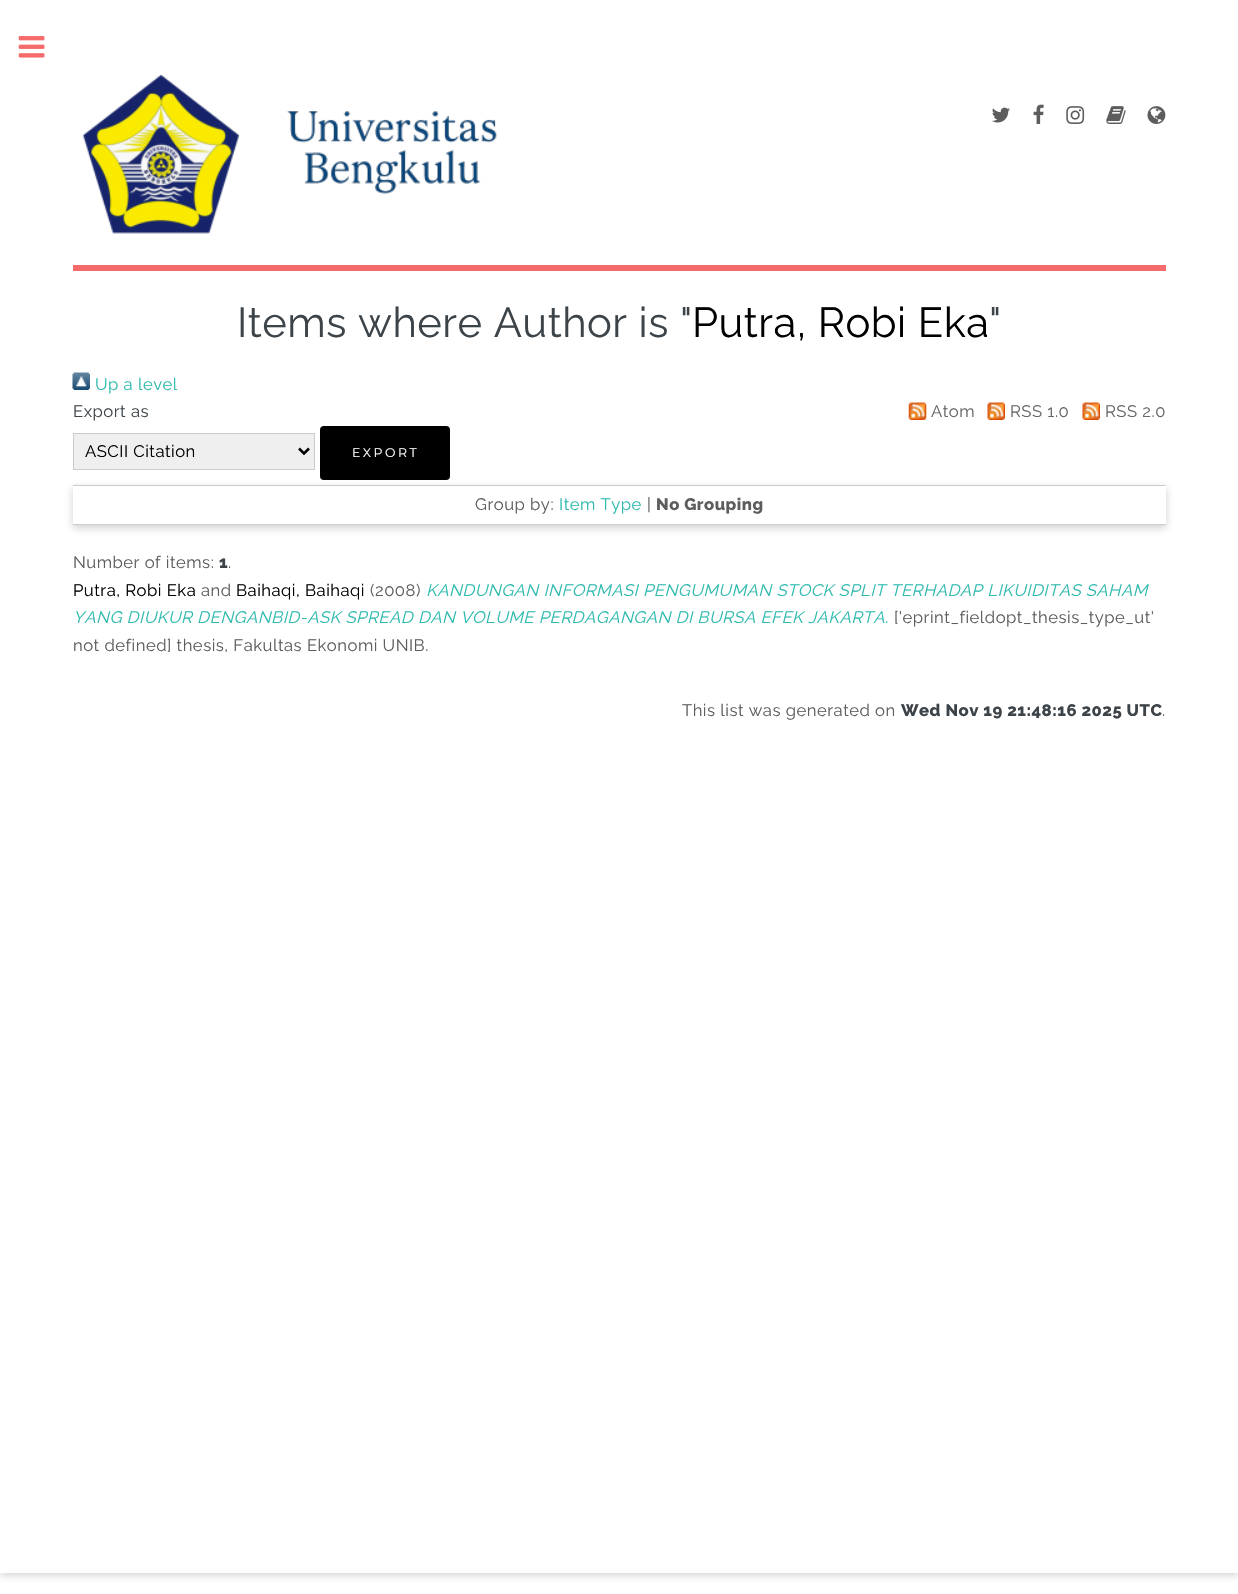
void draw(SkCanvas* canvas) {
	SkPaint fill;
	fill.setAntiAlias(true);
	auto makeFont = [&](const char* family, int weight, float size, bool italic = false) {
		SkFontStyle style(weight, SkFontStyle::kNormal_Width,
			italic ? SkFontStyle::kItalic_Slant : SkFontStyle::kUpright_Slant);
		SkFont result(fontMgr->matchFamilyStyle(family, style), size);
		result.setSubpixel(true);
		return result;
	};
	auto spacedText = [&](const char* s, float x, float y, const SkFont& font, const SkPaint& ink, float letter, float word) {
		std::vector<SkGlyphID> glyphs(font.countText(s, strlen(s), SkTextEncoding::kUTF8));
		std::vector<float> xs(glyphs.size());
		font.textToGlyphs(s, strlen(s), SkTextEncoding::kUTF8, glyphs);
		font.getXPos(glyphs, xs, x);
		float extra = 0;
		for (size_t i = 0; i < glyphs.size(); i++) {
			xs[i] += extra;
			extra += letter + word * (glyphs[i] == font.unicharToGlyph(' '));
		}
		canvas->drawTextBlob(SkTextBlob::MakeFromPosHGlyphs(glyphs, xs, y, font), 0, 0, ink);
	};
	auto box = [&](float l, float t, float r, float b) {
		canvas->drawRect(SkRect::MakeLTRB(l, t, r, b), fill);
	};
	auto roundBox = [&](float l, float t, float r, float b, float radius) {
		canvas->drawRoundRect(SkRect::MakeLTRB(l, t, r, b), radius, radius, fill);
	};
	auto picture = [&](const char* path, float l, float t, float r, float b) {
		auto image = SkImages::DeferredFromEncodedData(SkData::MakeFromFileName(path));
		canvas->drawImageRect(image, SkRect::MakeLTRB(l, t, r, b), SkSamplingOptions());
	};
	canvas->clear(0xFFFFFFFF);
	fill.setColor(0x4D646464);
	fill.setMaskFilter(SkMaskFilter::MakeBlur(kNormal_SkBlurStyle, 4));
	canvas->drawRect(SkRect::MakeLTRB(0, -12, 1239, 1575), fill);
	fill.setMaskFilter(nullptr);
	fill.setColor(0xFFFFFFFF);
	box(0, 0, 1238, 1573);
	picture("image0.png", 18, 36, 45, 58);
	fill.setColor(0xFFF56A6A);
	box(73, 265, 1166, 271);
	picture("image1.png", 82, 74, 497, 234);
	picture("image2.png", 992, 107, 1010, 123);
	picture("image3.png", 1033, 104, 1044, 124);
	picture("image4.png", 1066, 106, 1085, 124);
	picture("image5.png", 1106, 106, 1126, 124);
	picture("image6.png", 1147, 106, 1166, 124);
	picture("image7.png", 72, 372, 90, 390);
	fill.setColor(0xFFEFEFEF);
	canvas->drawRect(SkRect::MakeLTRB(73.5f, 433.5f, 314.5f, 469.5f), fill);
	fill.setStyle(SkPaint::kStroke_Style);
	fill.setStrokeWidth(1);
	fill.setColor(0xFFCCCCCC);
	canvas->drawRect(SkRect::MakeLTRB(73.5f, 433.5f, 314.5f, 469.5f), fill);
	fill.setStrokeWidth(2.5f);
	fill.setColor(0xFF000000);
	canvas->drawPath(SkPathBuilder().moveTo(299, 448.5f).lineTo(304, 453.5f).lineTo(309, 448.5f).detach(), fill);
	canvas->save();
	canvas->clipPath(SkPathBuilder(SkPathFillType::kEvenOdd).moveTo(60, 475).lineTo(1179, 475).lineTo(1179, 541).lineTo(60, 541).close().moveTo(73, 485).lineTo(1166, 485).lineTo(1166, 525).lineTo(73, 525).close().detach(), true);
	fill.setStyle(SkPaint::kFill_Style);
	fill.setColor(0x4D646464);
	fill.setMaskFilter(SkMaskFilter::MakeBlur(kNormal_SkBlurStyle, 4));
	canvas->drawRect(SkRect::MakeLTRB(73, 488, 1166, 528), fill);
	fill.setMaskFilter(nullptr);
	canvas->restore();
	fill.setColor(0xFF000000);
	roundBox(320, 426, 450, 480, 4);
	picture("image8.png", 908, 402, 927, 420);
	picture("image9.png", 987, 402, 1005, 420);
	picture("image9.png", 1082, 402, 1100, 420);
	fill.setColor(0xFFCCCCCC);
	box(73, 485, 1166, 486);
	box(73, 524, 1166, 525);
	auto font1 = makeFont("Raleway", 400, 41.75f);
	fill.setColor(0xFF3D4449);
	spacedText("Items where Author is \"", 237, 337, font1, fill, 0.5f, 0);
	fill.setColor(0xFF000000);
	spacedText("Putra, Robi Eka", 692, 337, font1, fill, 0.5f, 0);
	fill.setColor(0xFF3D4449);
	spacedText("\"", 989, 337, font1, fill, 0.5f, 0);
	auto font2 = makeFont("Raleway", 400, 16.65f);
	fill.setColor(0xFF2EBAAE);
	spacedText("Up a level", 95, 390, font2, fill, 0.5f, 0);
	fill.setColor(0xFF3D4449);
	spacedText("Export as", 73, 417, font2, fill, 0.5f, 0);
	fill.setColor(0xFF000000);
	spacedText("ASCII Citation", 85, 457, font2, fill, 0.5f, 0);
	auto font3 = makeFont("Montserrat", 400, 12.5f);
	fill.setColor(0xFFFFFFFF);
	spacedText("EXPORT", 352, 457, font3, fill, 2.5f, 0);
	fill.setColor(0xFF666666);
	spacedText("Atom", 931, 417, font2, fill, 0.5f, 0);
	spacedText("RSS 1.0", 1010, 417, font2, fill, 0.5f, 0);
	spacedText("RSS 2.0", 1105, 417, font2, fill, 0.5f, 0);
	fill.setColor(0xFF5D5D5D);
	spacedText("Group by:", 475, 510, font2, fill, 0.5f, 0);
	fill.setColor(0xFF2EBAAE);
	spacedText("Item Type", 559, 510, font2, fill, 0.5f, 0);
	fill.setColor(0xFF5D5D5D);
	spacedText("|", 647, 510, font2, fill, 0.5f, 0);
	auto font4 = makeFont("Raleway", 800, 16.65f);
	spacedText("No Grouping", 656, 510, font4, fill, 0.5f, 0);
	spacedText("Number of items:", 73, 568, font2, fill, 0.5f, 0);
	fill.setColor(0xFF3D4449);
	spacedText("1", 219, 568, font4, fill, 0.5f, 0);
	fill.setColor(0xFF5D5D5D);
	spacedText(".", 228, 568, font2, fill, 0.5f, 0);
	fill.setColor(0xFF000000);
	spacedText("Putra, Robi Eka", 73, 596, font2, fill, 0.5f, 0);
	fill.setColor(0xFF5D5D5D);
	spacedText("and", 201, 596, font2, fill, 0.5f, 0);
	fill.setColor(0xFF000000);
	spacedText("Baihaqi, Baihaqi", 236, 596, font2, fill, 0.5f, 0);
	fill.setColor(0xFF5D5D5D);
	spacedText("(2008)", 370, 596, font2, fill, 0.5f, 0);
	auto font5 = makeFont("Raleway", 400, 16.65f, true);
	fill.setColor(0xFF2EBAAE);
	spacedText("KANDUNGAN INFORMASI PENGUMUMAN STOCK SPLIT TERHADAP LIKUIDITAS SAHAM", 426, 596, font5, fill, 0.5f, 0);
	spacedText("YANG DIUKUR DENGANBID-ASK SPREAD DAN VOLUME PERDAGANGAN DI BURSA EFEK JAKARTA.", 73, 623, font5, fill, 0.5f, 0);
	fill.setColor(0xFF5D5D5D);
	spacedText("['eprint_fieldopt_thesis_type_ut'", 894, 623, font2, fill, 0.5f, 0);
	spacedText("not defined] thesis, Fakultas Ekonomi UNIB.", 73, 651, font2, fill, 0.5f, 0);
	spacedText("This list was generated on", 682, 716, font2, fill, 0.5f, 0);
	fill.setColor(0xFF3D4449);
	spacedText("Wed Nov 19 21:48:16 2025 UTC", 901, 716, font4, fill, 0.5f, 0);
	fill.setColor(0xFF5D5D5D);
	spacedText(".", 1162, 716, font2, fill, 0.5f, 0);
}
